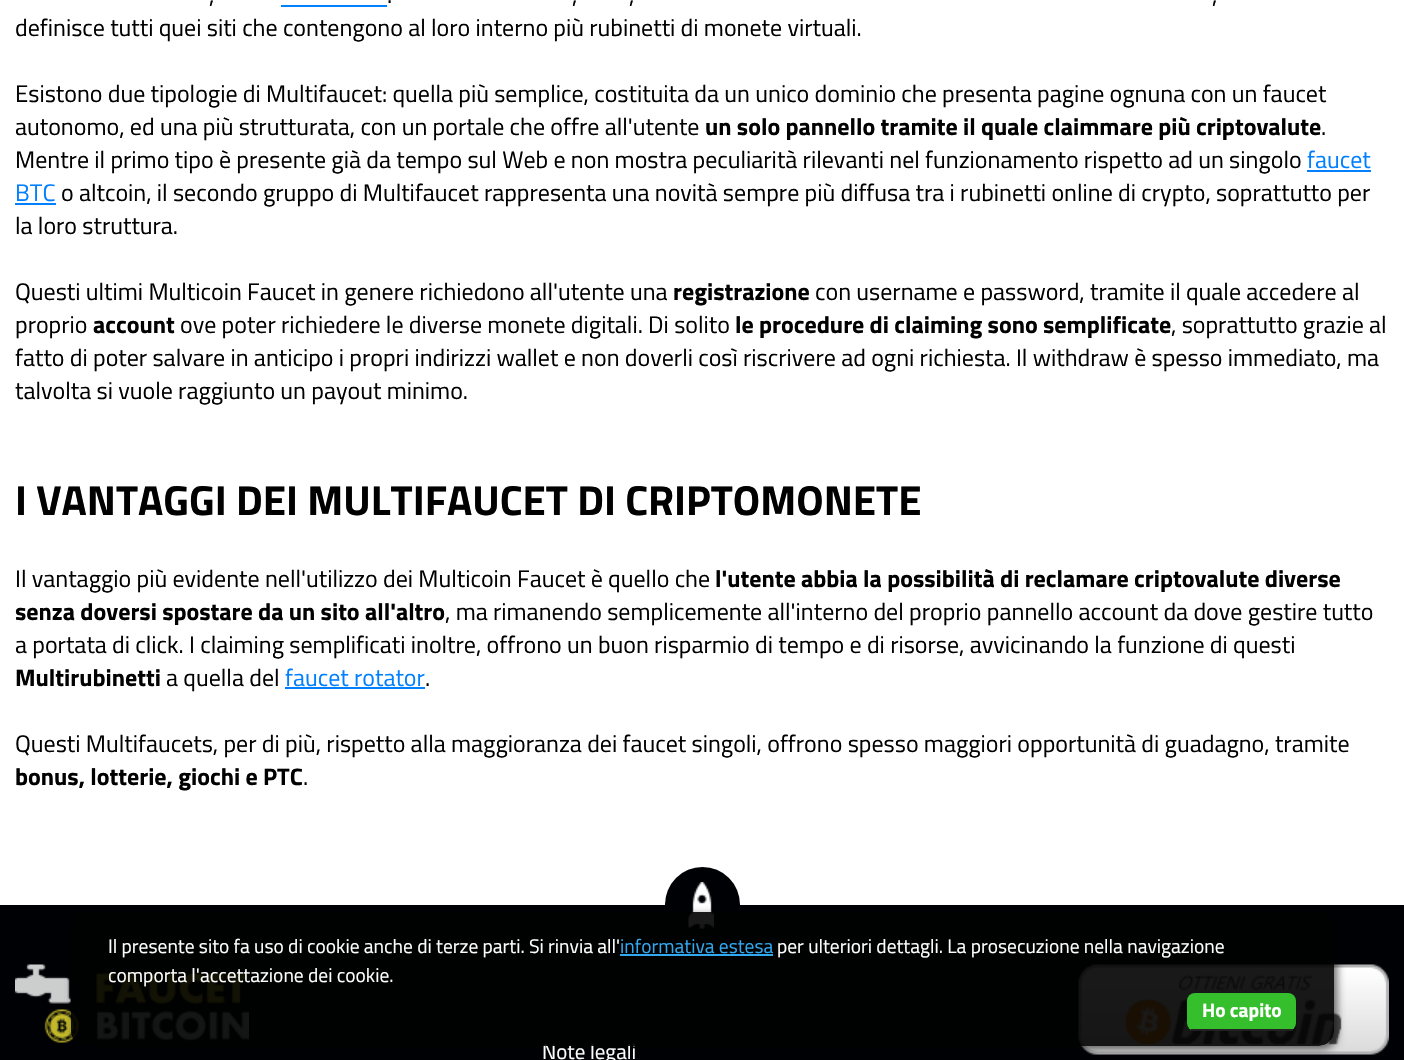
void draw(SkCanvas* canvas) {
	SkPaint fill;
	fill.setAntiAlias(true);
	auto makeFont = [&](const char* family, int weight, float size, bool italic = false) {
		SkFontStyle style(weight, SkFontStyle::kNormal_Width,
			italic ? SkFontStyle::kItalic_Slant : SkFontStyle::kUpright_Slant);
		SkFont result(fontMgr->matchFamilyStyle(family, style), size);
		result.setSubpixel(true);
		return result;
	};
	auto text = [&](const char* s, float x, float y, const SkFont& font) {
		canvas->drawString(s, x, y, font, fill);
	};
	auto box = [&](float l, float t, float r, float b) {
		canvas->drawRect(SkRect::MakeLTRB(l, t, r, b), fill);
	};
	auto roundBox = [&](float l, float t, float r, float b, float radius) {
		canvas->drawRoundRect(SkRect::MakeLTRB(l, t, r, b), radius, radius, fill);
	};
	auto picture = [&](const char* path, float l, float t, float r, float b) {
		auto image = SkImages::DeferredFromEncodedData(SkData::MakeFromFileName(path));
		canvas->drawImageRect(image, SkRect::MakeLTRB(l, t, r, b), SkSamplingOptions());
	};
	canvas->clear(0xFFFFFFFF);
	fill.setColor(0xFF007FFF);
	box(281, 5, 387, 7);
	box(1307, 170, 1371, 172);
	box(15, 203, 56, 205);
	box(285, 687, 425, 689);
	fill.setColor(0xFF000105);
	box(0, 905, 1404, 1060);
	canvas->drawCircle(702.5f, 904.5f, 37.5f, fill);
	picture("image0.png", 688, 882, 714, 929);
	picture("image1.png", 15, 964, 249, 1043);
	picture("image2.png", 1078, 964, 1389, 1055);
	canvas->save();
	canvas->clipPath(SkPathBuilder(SkPathFillType::kEvenOdd).moveTo(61, 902).lineTo(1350, 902).lineTo(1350, 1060).lineTo(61, 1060).close().moveTo(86, 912).lineTo(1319, 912).cubicTo(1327.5f, 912, 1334, 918.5f, 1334, 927).lineTo(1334, 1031).cubicTo(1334, 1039.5f, 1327.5f, 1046, 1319, 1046).lineTo(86, 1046).cubicTo(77.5f, 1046, 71, 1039.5f, 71, 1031).lineTo(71, 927).cubicTo(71, 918.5f, 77.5f, 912, 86, 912).close().detach(), true);
	fill.setColor(0x99000000);
	fill.setMaskFilter(SkMaskFilter::MakeBlur(kNormal_SkBlurStyle, 4));
	canvas->drawRoundRect(SkRect::MakeLTRB(74, 915, 1337, 1049), 15, 15, fill);
	fill.setMaskFilter(nullptr);
	canvas->restore();
	auto font1 = makeFont("Titillium Web", 400, 24);
	fill.setColor(0xFF000000);
	text(",", 209, 3, font1);
	text(".", 387, 3, font1);
	text(",", 572, 3, font1);
	text(",", 629, 3, font1);
	text(",", 1212, 3, font1);
	text("definisce tutti quei siti che contengono al loro interno più rubinetti di monete virtuali.", 15, 36, font1);
	text("Esistono due tipologie di Multifaucet: quella più semplice, costituita da un unico dominio che presenta pagine ognuna con un faucet", 15, 102, font1);
	text("autonomo, ed una più strutturata, con un portale che offre all'utente", 15, 135, font1);
	auto font2 = makeFont("Titillium Web", 700, 24);
	text("un solo pannello tramite il quale claimmare più criptovalute", 705, 135, font2);
	text(".", 1321, 135, font1);
	text("Mentre il primo tipo è presente già da tempo sul Web e non mostra peculiarità rilevanti nel funzionamento rispetto ad un singolo", 15, 168, font1);
	fill.setColor(0xFF007FFF);
	text("faucet", 1307, 168, font1);
	text("BTC", 15, 201, font1);
	fill.setColor(0xFF000000);
	text("o altcoin, il secondo gruppo di Multifaucet rappresenta una novità sempre più diffusa tra i rubinetti online di crypto, soprattutto per", 61, 201, font1);
	text("la loro struttura.", 15, 234, font1);
	text("Questi ultimi Multicoin Faucet in genere richiedono all'utente una", 15, 300, font1);
	text("registrazione", 673, 300, font2);
	text("con username e password, tramite il quale accedere al", 815, 300, font1);
	text("proprio", 15, 333, font1);
	text("account", 93, 333, font2);
	text("ove poter richiedere le diverse monete digitali. Di solito", 180, 333, font1);
	text("le procedure di claiming sono semplificate", 735, 333, font2);
	text(", soprattutto grazie al", 1171, 333, font1);
	text("fatto di poter salvare in anticipo i propri indirizzi wallet e non doverli così riscrivere ad ogni richiesta. Il withdraw è spesso immediato, ma", 15, 366, font1);
	text("talvolta si vuole raggiunto un payout minimo.", 15, 399, font1);
	auto font3 = makeFont("Titillium Web", 700, 42);
	text("I VANTAGGI DEI MULTIFAUCET DI CRIPTOMONETE", 15, 515, font3);
	text("Il vantaggio più evidente nell'utilizzo dei Multicoin Faucet è quello che", 15, 587, font1);
	text("l'utente abbia la possibilità di reclamare criptovalute diverse", 715, 587, font2);
	text("senza doversi spostare da un sito all'altro", 15, 620, font2);
	text(", ma rimanendo semplicemente all'interno del proprio pannello account da dove gestire tutto", 445, 620, font1);
	text("a portata di click. I claiming semplificati inoltre, offrono un buon risparmio di tempo e di risorse, avvicinando la funzione di questi", 15, 653, font1);
	text("Multirubinetti", 15, 686, font2);
	text("a quella del", 166, 686, font1);
	fill.setColor(0xFF007FFF);
	text("faucet rotator", 285, 686, font1);
	fill.setColor(0xFF000000);
	text(".", 425, 686, font1);
	text("Questi Multifaucets, per di più, rispetto alla maggioranza dei faucet singoli, offrono spesso maggiori opportunità di guadagno, tramite", 15, 752, font1);
	text("bonus, lotterie, giochi e PTC", 15, 785, font2);
	text(".", 303, 785, font1);
	auto font4 = makeFont("Titillium Web", 400, 21);
	fill.setColor(0xFFFFFFFF);
	text("Note legali", 542, 1059, font4);
	fill.setColor(0xE6000000);
	roundBox(71, 912, 1334, 1046, 15);
	fill.setColor(0xFF36BF2D);
	roundBox(1187, 993, 1296, 1031, 8);
	auto font5 = makeFont("Titillium Web", 700, 19.5f);
	fill.setColor(0xFFFFFFFF);
	text("Ho capito", 1202, 1017, font5);
	fill.setColor(0xFF222222);
	box(1191, 1029, 1293, 1031);
	auto font6 = makeFont("Titillium Web", 400, 19.5f);
	fill.setColor(0xFFFFFFFF);
	text("comporta l'accettazione dei cookie.", 108, 982, font6);
	text("per ulteriori dettagli. La prosecuzione nella navigazione", 777, 953, font6);
	fill.setColor(0xFF31A8F0);
	text("informativa estesa", 620, 953, font6);
	box(620, 954, 773, 956);
	fill.setColor(0xFFFFFFFF);
	text("Il presente sito fa uso di cookie anche di terze parti. Si rinvia all'", 108, 953, font6);
}
